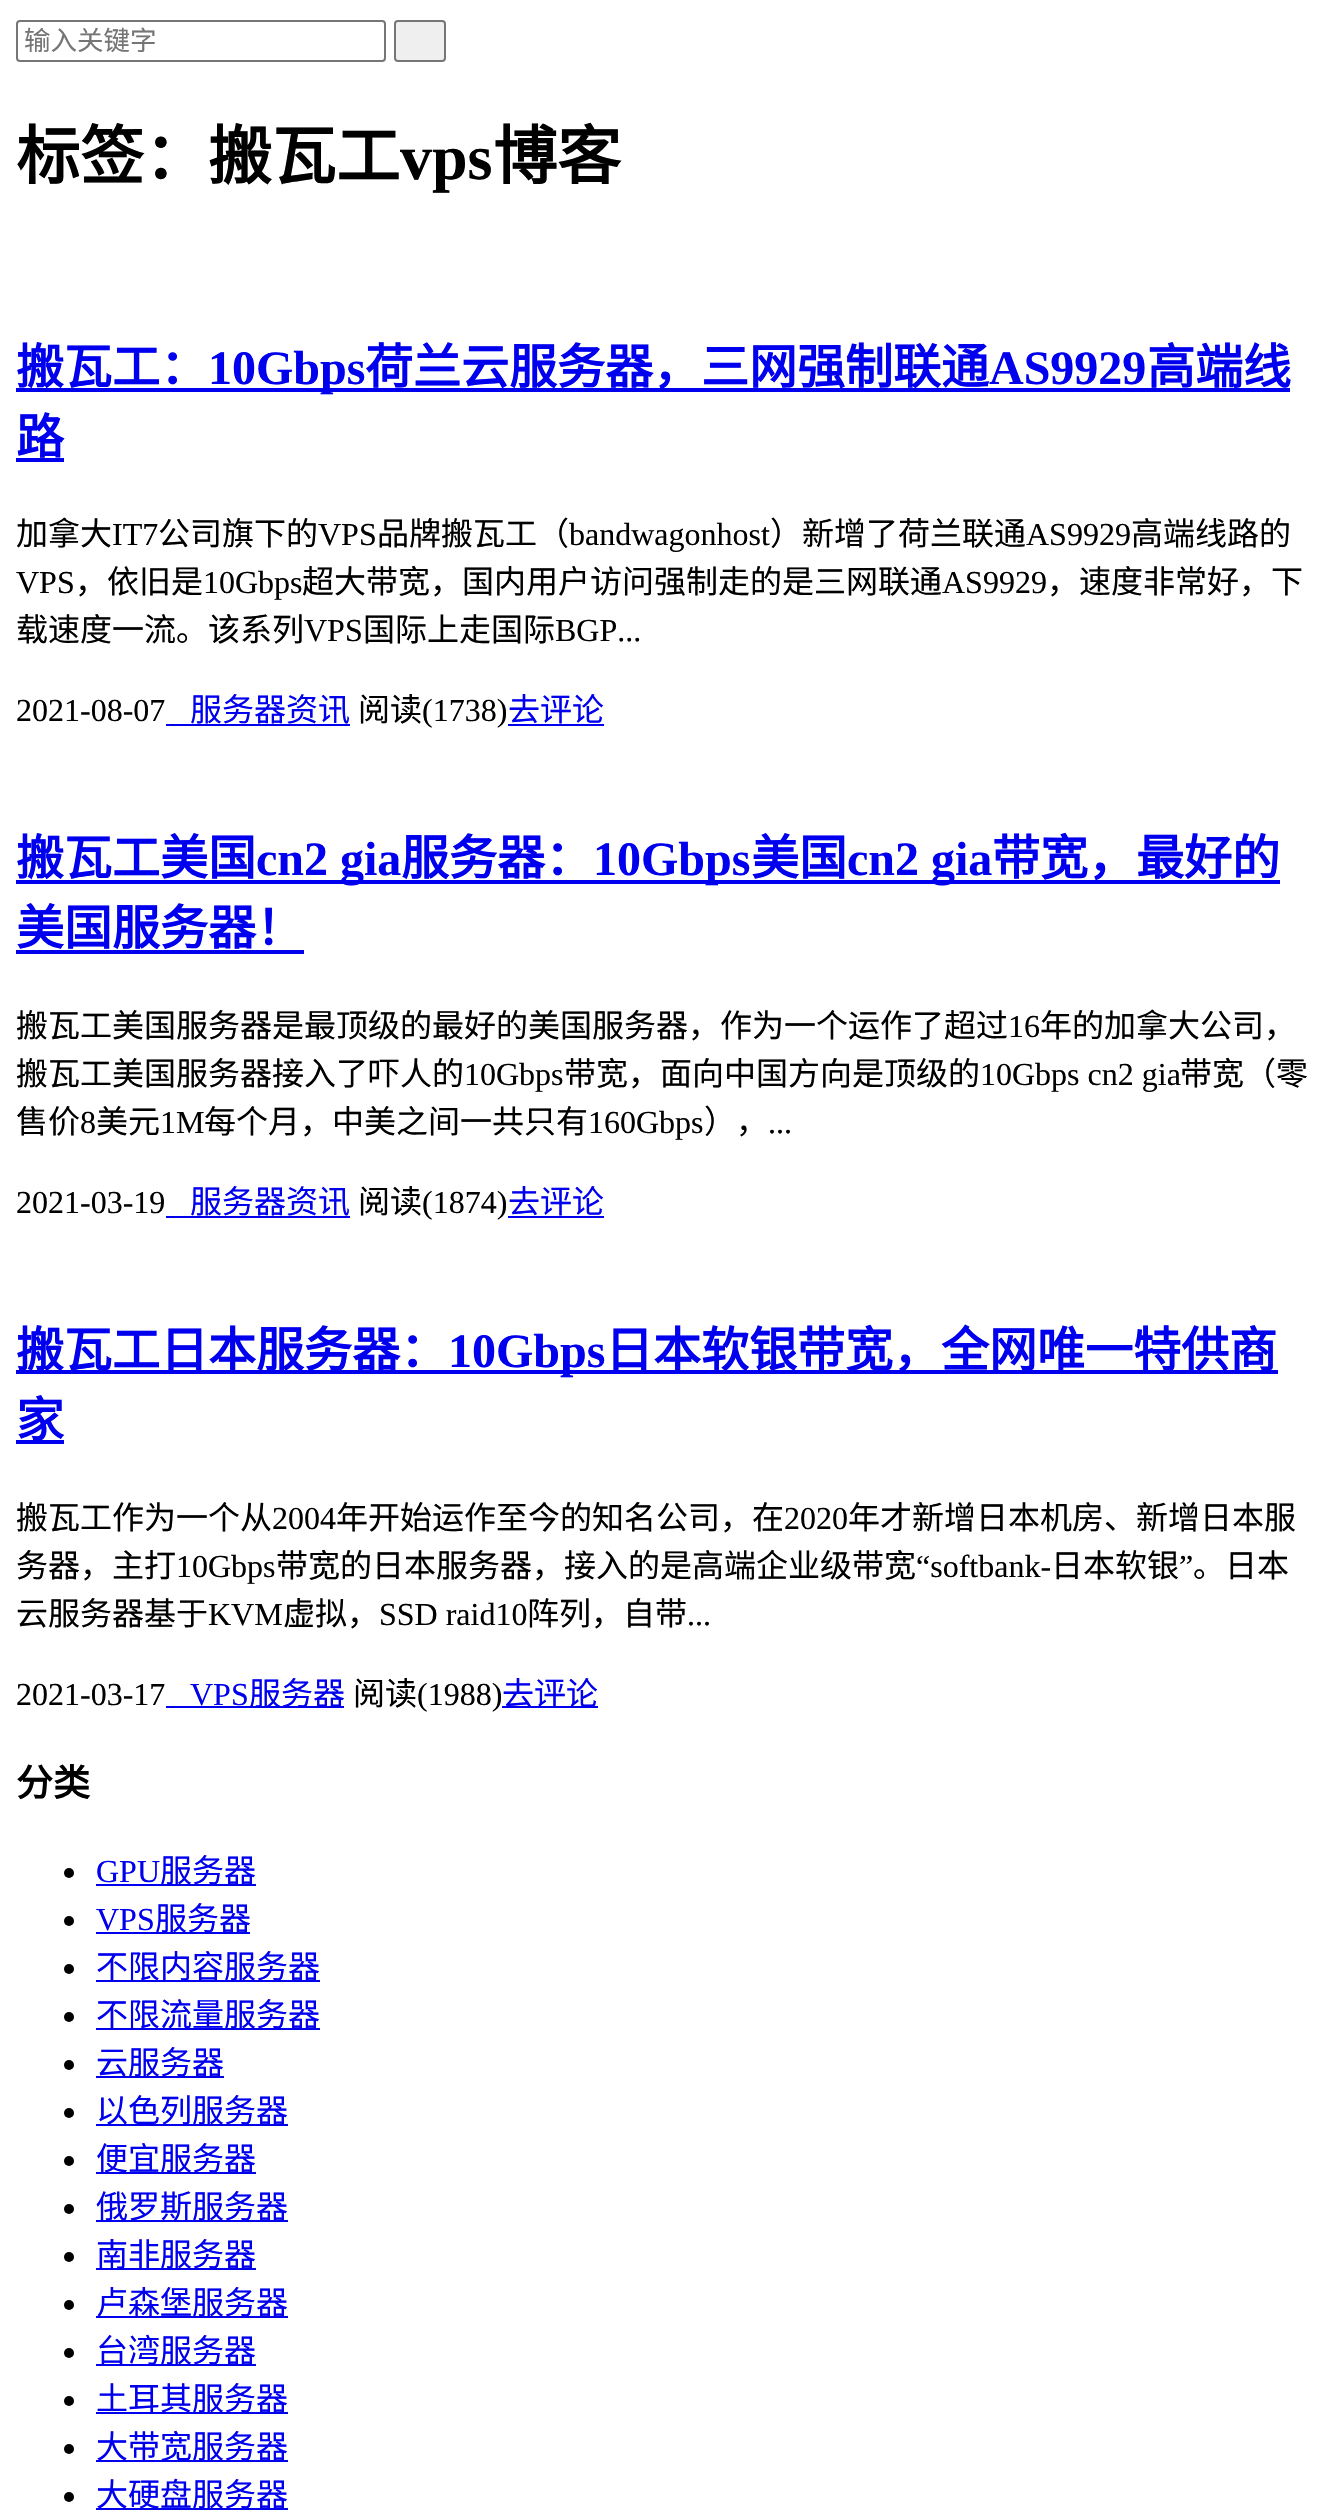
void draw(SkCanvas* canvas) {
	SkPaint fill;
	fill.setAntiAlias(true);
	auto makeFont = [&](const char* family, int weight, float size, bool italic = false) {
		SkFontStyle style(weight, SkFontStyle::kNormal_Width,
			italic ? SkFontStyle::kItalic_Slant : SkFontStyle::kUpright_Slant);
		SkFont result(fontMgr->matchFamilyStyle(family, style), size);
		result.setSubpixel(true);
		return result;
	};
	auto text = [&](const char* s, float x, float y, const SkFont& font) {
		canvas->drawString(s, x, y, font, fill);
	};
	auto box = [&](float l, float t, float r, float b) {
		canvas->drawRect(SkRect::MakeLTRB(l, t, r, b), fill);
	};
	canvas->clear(0xFFFFFFFF);
	fill.setStyle(SkPaint::kStroke_Style);
	fill.setStrokeWidth(2);
	fill.setColor(0xFF767676);
	canvas->drawRoundRect(SkRect::MakeLTRB(17, 21, 385, 61), 3, 3, fill);
	fill.setStyle(SkPaint::kFill_Style);
	fill.setColor(0xFFEFEFEF);
	canvas->drawRoundRect(SkRect::MakeLTRB(395, 21, 445, 61), 3, 3, fill);
	fill.setStyle(SkPaint::kStroke_Style);
	fill.setColor(0xFF767676);
	canvas->drawRoundRect(SkRect::MakeLTRB(395, 21, 445, 61), 3, 3, fill);
	fill.setStyle(SkPaint::kFill_Style);
	fill.setColor(0xFF0000EE);
	box(16, 388, 1290, 392);
	box(16, 458, 64, 462);
	box(166, 724, 350, 726);
	box(508, 724, 604, 726);
	box(16, 880, 1280, 884);
	box(16, 950, 304, 954);
	box(166, 1216, 350, 1218);
	box(508, 1216, 604, 1218);
	box(16, 1370, 1278, 1374);
	box(16, 1440, 64, 1444);
	box(166, 1706, 344, 1708);
	box(502, 1706, 598, 1708);
	fill.setColor(0xFF000000);
	canvas->drawCircle(69, 1873, 5, fill);
	fill.setColor(0xFF0000EE);
	box(96, 1884, 256, 1886);
	fill.setColor(0xFF000000);
	canvas->drawCircle(69, 1921, 5, fill);
	fill.setColor(0xFF0000EE);
	box(96, 1932, 250, 1934);
	fill.setColor(0xFF000000);
	canvas->drawCircle(69, 1969, 5, fill);
	fill.setColor(0xFF0000EE);
	box(96, 1980, 320, 1982);
	fill.setColor(0xFF000000);
	canvas->drawCircle(69, 2017, 5, fill);
	fill.setColor(0xFF0000EE);
	box(96, 2028, 320, 2030);
	fill.setColor(0xFF000000);
	canvas->drawCircle(69, 2065, 5, fill);
	fill.setColor(0xFF0000EE);
	box(96, 2076, 224, 2078);
	fill.setColor(0xFF000000);
	canvas->drawCircle(69, 2113, 5, fill);
	fill.setColor(0xFF0000EE);
	box(96, 2124, 288, 2126);
	fill.setColor(0xFF000000);
	canvas->drawCircle(69, 2161, 5, fill);
	fill.setColor(0xFF0000EE);
	box(96, 2172, 256, 2174);
	fill.setColor(0xFF000000);
	canvas->drawCircle(69, 2209, 5, fill);
	fill.setColor(0xFF0000EE);
	box(96, 2220, 288, 2222);
	fill.setColor(0xFF000000);
	canvas->drawCircle(69, 2257, 5, fill);
	fill.setColor(0xFF0000EE);
	box(96, 2268, 256, 2270);
	fill.setColor(0xFF000000);
	canvas->drawCircle(69, 2305, 5, fill);
	fill.setColor(0xFF0000EE);
	box(96, 2316, 288, 2318);
	fill.setColor(0xFF000000);
	canvas->drawCircle(69, 2353, 5, fill);
	fill.setColor(0xFF0000EE);
	box(96, 2364, 256, 2366);
	fill.setColor(0xFF000000);
	canvas->drawCircle(69, 2401, 5, fill);
	fill.setColor(0xFF0000EE);
	box(96, 2412, 288, 2414);
	fill.setColor(0xFF000000);
	canvas->drawCircle(69, 2449, 5, fill);
	fill.setColor(0xFF0000EE);
	box(96, 2460, 288, 2462);
	fill.setColor(0xFF000000);
	canvas->drawCircle(69, 2497, 5, fill);
	fill.setColor(0xFF0000EE);
	box(96, 2508, 288, 2510);
	auto font1 = makeFont("Noto Sans CJK SC", 400, 26.5f);
	fill.setColor(0xFF757575);
	text("输入关键字", 24, 50, font1);
	auto font2 = makeFont("Noto Sans CJK SC", 700, 64);
	fill.setColor(0xFF000000);
	text("标签：搬瓦工", 16, 179, font2);
	auto font3 = makeFont("Liberation Serif", 700, 64);
	text("vps", 400, 179, font3);
	text("博客", 493, 179, font2);
	auto font4 = makeFont("Noto Sans CJK SC", 700, 48);
	fill.setColor(0xFF0000EE);
	text("搬瓦工：", 16, 384, font4);
	auto font5 = makeFont("Liberation Serif", 700, 48);
	text("10Gbps", 208, 384, font5);
	text("荷兰云服务器，三网强制联通", 365, 384, font4);
	text("AS9929", 989, 384, font5);
	text("高端线", 1147, 384, font4);
	text("路", 16, 454, font4);
	auto font6 = makeFont("Noto Sans CJK SC", 400, 32);
	fill.setColor(0xFF000000);
	text("加拿大", 16, 545, font6);
	auto font7 = makeFont("Liberation Serif", 400, 32);
	text("IT7", 112, 545, font7);
	text("公司旗下的", 158, 545, font6);
	text("VPS", 318, 545, font7);
	text("品牌搬瓦工（", 377, 545, font6);
	text("bandwagonhost", 569, 545, font7);
	text("）新增了荷兰联通", 770, 545, font6);
	text("AS9929", 1026, 545, font7);
	text("高端线路的", 1131, 545, font6);
	text("VPS", 16, 593, font7);
	text("，依旧是", 75, 593, font6);
	text("10Gbps", 203, 593, font7);
	text("超大带宽，国内用户访问强制走的是三网联通", 302, 593, font6);
	text("AS9929", 942, 593, font7);
	text("，速度非常好，下", 1047, 593, font6);
	text("载速度一流。该系列", 16, 641, font6);
	text("VPS", 304, 641, font7);
	text("国际上走国际", 363, 641, font6);
	text("BGP...", 555, 641, font7);
	text("2021-08-07", 16, 721, font7);
	fill.setColor(0xFF0000EE);
	text("服务器资讯", 190, 721, font6);
	fill.setColor(0xFF000000);
	text("阅读", 358, 721, font6);
	text("(1738)", 422, 721, font7);
	fill.setColor(0xFF0000EE);
	text("去评论", 508, 721, font6);
	text("搬瓦工美国", 16, 875, font4);
	text("cn2 gia", 256, 875, font5);
	text("服务器：", 401, 875, font4);
	text("10Gbps", 593, 875, font5);
	text("美国", 751, 875, font4);
	text("cn2 gia", 847, 875, font5);
	text("带宽，最好的", 992, 875, font4);
	text("美国服务器！", 16, 945, font4);
	fill.setColor(0xFF000000);
	text("搬瓦工美国服务器是最顶级的最好的美国服务器，作为一个运作了超过", 16, 1037, font6);
	text("16", 1008, 1037, font7);
	text("年的加拿大公司，", 1040, 1037, font6);
	text("搬瓦工美国服务器接入了吓人的", 16, 1085, font6);
	text("10Gbps", 464, 1085, font7);
	text("带宽，面向中国方向是顶级的", 564, 1085, font6);
	text("10Gbps cn2 gia", 980, 1085, font7);
	text("带宽（零", 1180, 1085, font6);
	text("售价", 16, 1133, font6);
	text("8", 80, 1133, font7);
	text("美元", 96, 1133, font6);
	text("1M", 160, 1133, font7);
	text("每个月，中美之间一共只有", 204, 1133, font6);
	text("160Gbps", 588, 1133, font7);
	text("），", 704, 1133, font6);
	text("...", 768, 1133, font7);
	text("2021-03-19", 16, 1213, font7);
	fill.setColor(0xFF0000EE);
	text("服务器资讯", 190, 1213, font6);
	fill.setColor(0xFF000000);
	text("阅读", 358, 1213, font6);
	text("(1874)", 422, 1213, font7);
	fill.setColor(0xFF0000EE);
	text("去评论", 508, 1213, font6);
	text("搬瓦工日本服务器：", 16, 1367, font4);
	text("10Gbps", 448, 1367, font5);
	text("日本软银带宽，全网唯一特供商", 605, 1367, font4);
	text("家", 16, 1437, font4);
	fill.setColor(0xFF000000);
	text("搬瓦工作为一个从", 16, 1529, font6);
	text("2004", 272, 1529, font7);
	text("年开始运作至今的知名公司，在", 336, 1529, font6);
	text("2020", 784, 1529, font7);
	text("年才新增日本机房、新增日本服", 848, 1529, font6);
	text("务器，主打", 16, 1577, font6);
	text("10Gbps", 176, 1577, font7);
	text("带宽的日本服务器，接入的是高端企业级带宽", 276, 1577, font6);
	text("“softbank-", 916, 1577, font7);
	text("日本软银", 1051, 1577, font6);
	text("”", 1179, 1577, font7);
	text("。日本", 1193, 1577, font6);
	text("云服务器基于", 16, 1625, font6);
	text("KVM", 208, 1625, font7);
	text("虚拟，", 283, 1625, font6);
	text("SSD raid10", 379, 1625, font7);
	text("阵列，自带", 527, 1625, font6);
	text("...", 687, 1625, font7);
	text("2021-03-17", 16, 1705, font7);
	fill.setColor(0xFF0000EE);
	text("VPS", 190, 1705, font7);
	text("服务器", 249, 1705, font6);
	fill.setColor(0xFF000000);
	text("阅读", 353, 1705, font6);
	text("(1988)", 417, 1705, font7);
	fill.setColor(0xFF0000EE);
	text("去评论", 502, 1705, font6);
	auto font8 = makeFont("Noto Sans CJK SC", 700, 37);
	fill.setColor(0xFF000000);
	text("分类", 16, 1796, font8);
	fill.setColor(0xFF0000EE);
	text("GPU", 96, 1882, font7);
	text("服务器", 160, 1882, font6);
	text("VPS", 96, 1930, font7);
	text("服务器", 155, 1930, font6);
	text("不限内容服务器", 96, 1978, font6);
	text("不限流量服务器", 96, 2026, font6);
	text("云服务器", 96, 2074, font6);
	text("以色列服务器", 96, 2122, font6);
	text("便宜服务器", 96, 2170, font6);
	text("俄罗斯服务器", 96, 2218, font6);
	text("南非服务器", 96, 2266, font6);
	text("卢森堡服务器", 96, 2314, font6);
	text("台湾服务器", 96, 2362, font6);
	text("土耳其服务器", 96, 2410, font6);
	text("大带宽服务器", 96, 2458, font6);
	text("大硬盘服务器", 96, 2506, font6);
}
